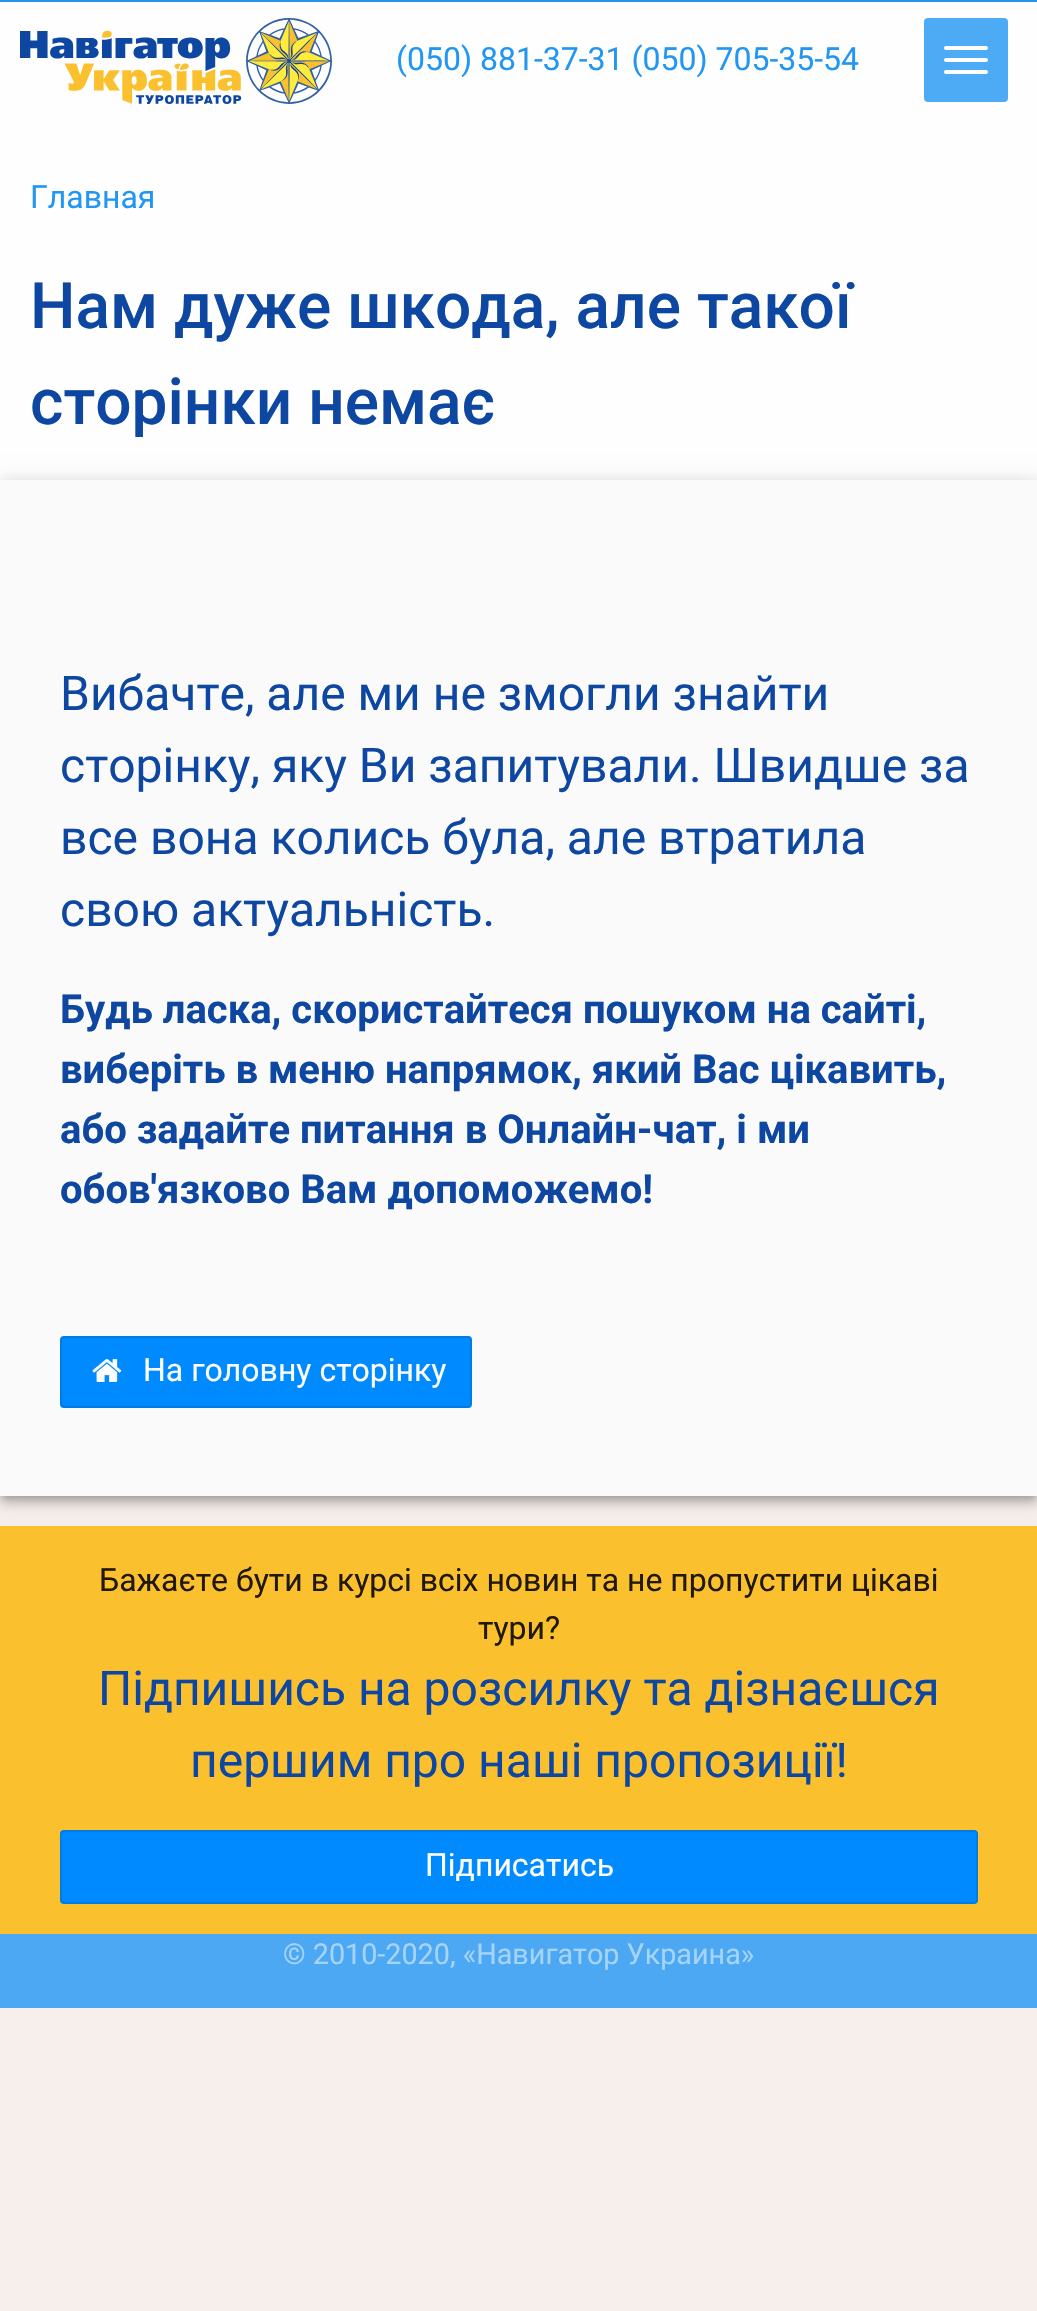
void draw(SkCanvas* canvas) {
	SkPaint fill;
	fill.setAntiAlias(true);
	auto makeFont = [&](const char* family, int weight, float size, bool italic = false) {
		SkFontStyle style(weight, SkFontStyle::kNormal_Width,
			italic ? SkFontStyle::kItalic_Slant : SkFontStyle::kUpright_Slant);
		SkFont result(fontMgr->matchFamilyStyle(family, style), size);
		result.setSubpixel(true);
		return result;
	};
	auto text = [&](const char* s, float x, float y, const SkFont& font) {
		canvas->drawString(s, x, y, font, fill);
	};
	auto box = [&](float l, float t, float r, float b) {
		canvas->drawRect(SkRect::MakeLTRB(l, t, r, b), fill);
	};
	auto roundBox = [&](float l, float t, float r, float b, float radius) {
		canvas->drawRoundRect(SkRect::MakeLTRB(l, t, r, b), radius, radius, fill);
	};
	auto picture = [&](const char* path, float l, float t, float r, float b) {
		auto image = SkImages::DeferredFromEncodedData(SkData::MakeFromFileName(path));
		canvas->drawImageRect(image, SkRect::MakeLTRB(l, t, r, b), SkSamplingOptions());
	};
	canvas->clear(0xFFF7EFEC);
	{
		const SkColor colors[] = {0xFFFEFEFE, 0xFFF5F0EF};
		const float stops[] = {0.6f, 1};
		const SkPoint ends[] = {{519, 0}, {519, 880}};
		fill.setShader(SkGradientShader::MakeLinear(ends, colors, stops, 2, SkTileMode::kClamp));
		fill.setAlpha(255);
	}
	box(0, 2, 1037, 480);
	fill.setShader(nullptr);
	fill.setColor(0xFF2196F3);
	box(0, 0, 1037, 2);
	picture("image0.png", 20, 18, 332, 104);
	fill.setColor(0xFF4DABF5);
	roundBox(924, 18, 1008, 102, 4);
	fill.setColor(0xFFFFFFFF);
	roundBox(944, 46, 988, 50, 2);
	roundBox(944, 58, 988, 62, 2);
	roundBox(944, 70, 988, 74, 2);
	fill.setColor(0x1F000000);
	fill.setMaskFilter(SkMaskFilter::MakeBlur(kNormal_SkBlurStyle, 10));
	canvas->drawRect(SkRect::MakeLTRB(0, 482, 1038, 1498), fill);
	fill.setMaskFilter(nullptr);
	fill.setColor(0x24000000);
	fill.setMaskFilter(SkMaskFilter::MakeBlur(kNormal_SkBlurStyle, 5));
	canvas->drawRect(SkRect::MakeLTRB(0, 488, 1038, 1504), fill);
	fill.setMaskFilter(nullptr);
	fill.setColor(0x33000000);
	fill.setMaskFilter(SkMaskFilter::MakeBlur(kNormal_SkBlurStyle, 4));
	canvas->drawRect(SkRect::MakeLTRB(2, 486, 1036, 1498), fill);
	fill.setMaskFilter(nullptr);
	fill.setColor(0xFFFAFAFA);
	box(0, 480, 1037, 1496);
	fill.setColor(0xFF008AFF);
	canvas->drawRoundRect(SkRect::MakeLTRB(61, 1337, 471, 1407), 3, 3, fill);
	fill.setStyle(SkPaint::kStroke_Style);
	fill.setStrokeWidth(2);
	fill.setColor(0xFF007CE6);
	canvas->drawRoundRect(SkRect::MakeLTRB(61, 1337, 471, 1407), 3, 3, fill);
	picture("image1.png", 92, 1359, 122, 1382);
	fill.setStyle(SkPaint::kFill_Style);
	fill.setColor(0xFFFBC02D);
	box(0, 1526, 1037, 1934);
	fill.setColor(0xFF008AFF);
	canvas->drawRoundRect(SkRect::MakeLTRB(61, 1831, 977, 1903), 3, 3, fill);
	fill.setStyle(SkPaint::kStroke_Style);
	fill.setColor(0xFF007CE6);
	canvas->drawRoundRect(SkRect::MakeLTRB(61, 1831, 977, 1903), 3, 3, fill);
	fill.setStyle(SkPaint::kFill_Style);
	fill.setColor(0xFF4CA8F2);
	box(0, 1934, 1037, 2008);
	auto font1 = makeFont("Roboto", 400, 32);
	fill.setColor(0xFF2196F3);
	text("(050) 881-37-31 (050) 705-35-54", 396, 70, font1);
	text("Главная", 30, 208, font1);
	auto font2 = makeFont("Roboto", 500, 64);
	fill.setColor(0xFF0D47A1);
	text("Нам дуже шкода, але такої", 30, 328, font2);
	text("сторінки немає", 30, 424, font2);
	auto font3 = makeFont("Roboto", 400, 48);
	text("Вибачте, але ми не змогли знайти", 60, 710, font3);
	text("сторінку, яку Ви запитували. Швидше за", 60, 782, font3);
	text("все вона колись була, але втратила", 60, 854, font3);
	text("свою актуальність.", 60, 926, font3);
	auto font4 = makeFont("Roboto", 700, 40);
	text("Будь ласка, скористайтеся пошуком на сайті,", 60, 1023, font4);
	text("виберіть в меню напрямок, який Вас цікавить,", 60, 1083, font4);
	text("або задайте питання в Онлайн-чат, і ми", 60, 1143, font4);
	text("обов'язково Вам допоможемо!", 60, 1203, font4);
	fill.setColor(0xFFFFFFFF);
	text("На головну сторінку", 143, 1381, font1);
	fill.setColor(0xFF211906);
	text("Бажаєте бути в курсі всіх новин та не пропустити цікаві", 99, 1591, font1);
	text("тури?", 478, 1639, font1);
	fill.setColor(0xFF0D47A1);
	text("Підпишись на розсилку та дізнаєшся", 98, 1705, font3);
	text("першим про наші пропозиції!", 190, 1777, font3);
	fill.setColor(0xFFFFFFFF);
	text("Підписатись", 425, 1876, font1);
	auto font5 = makeFont("Roboto", 400, 28.75f);
	fill.setColor(0xFFA6D4F9);
	text("© 2010-2020, «Навигатор Украина»", 283, 1964, font5);
}
